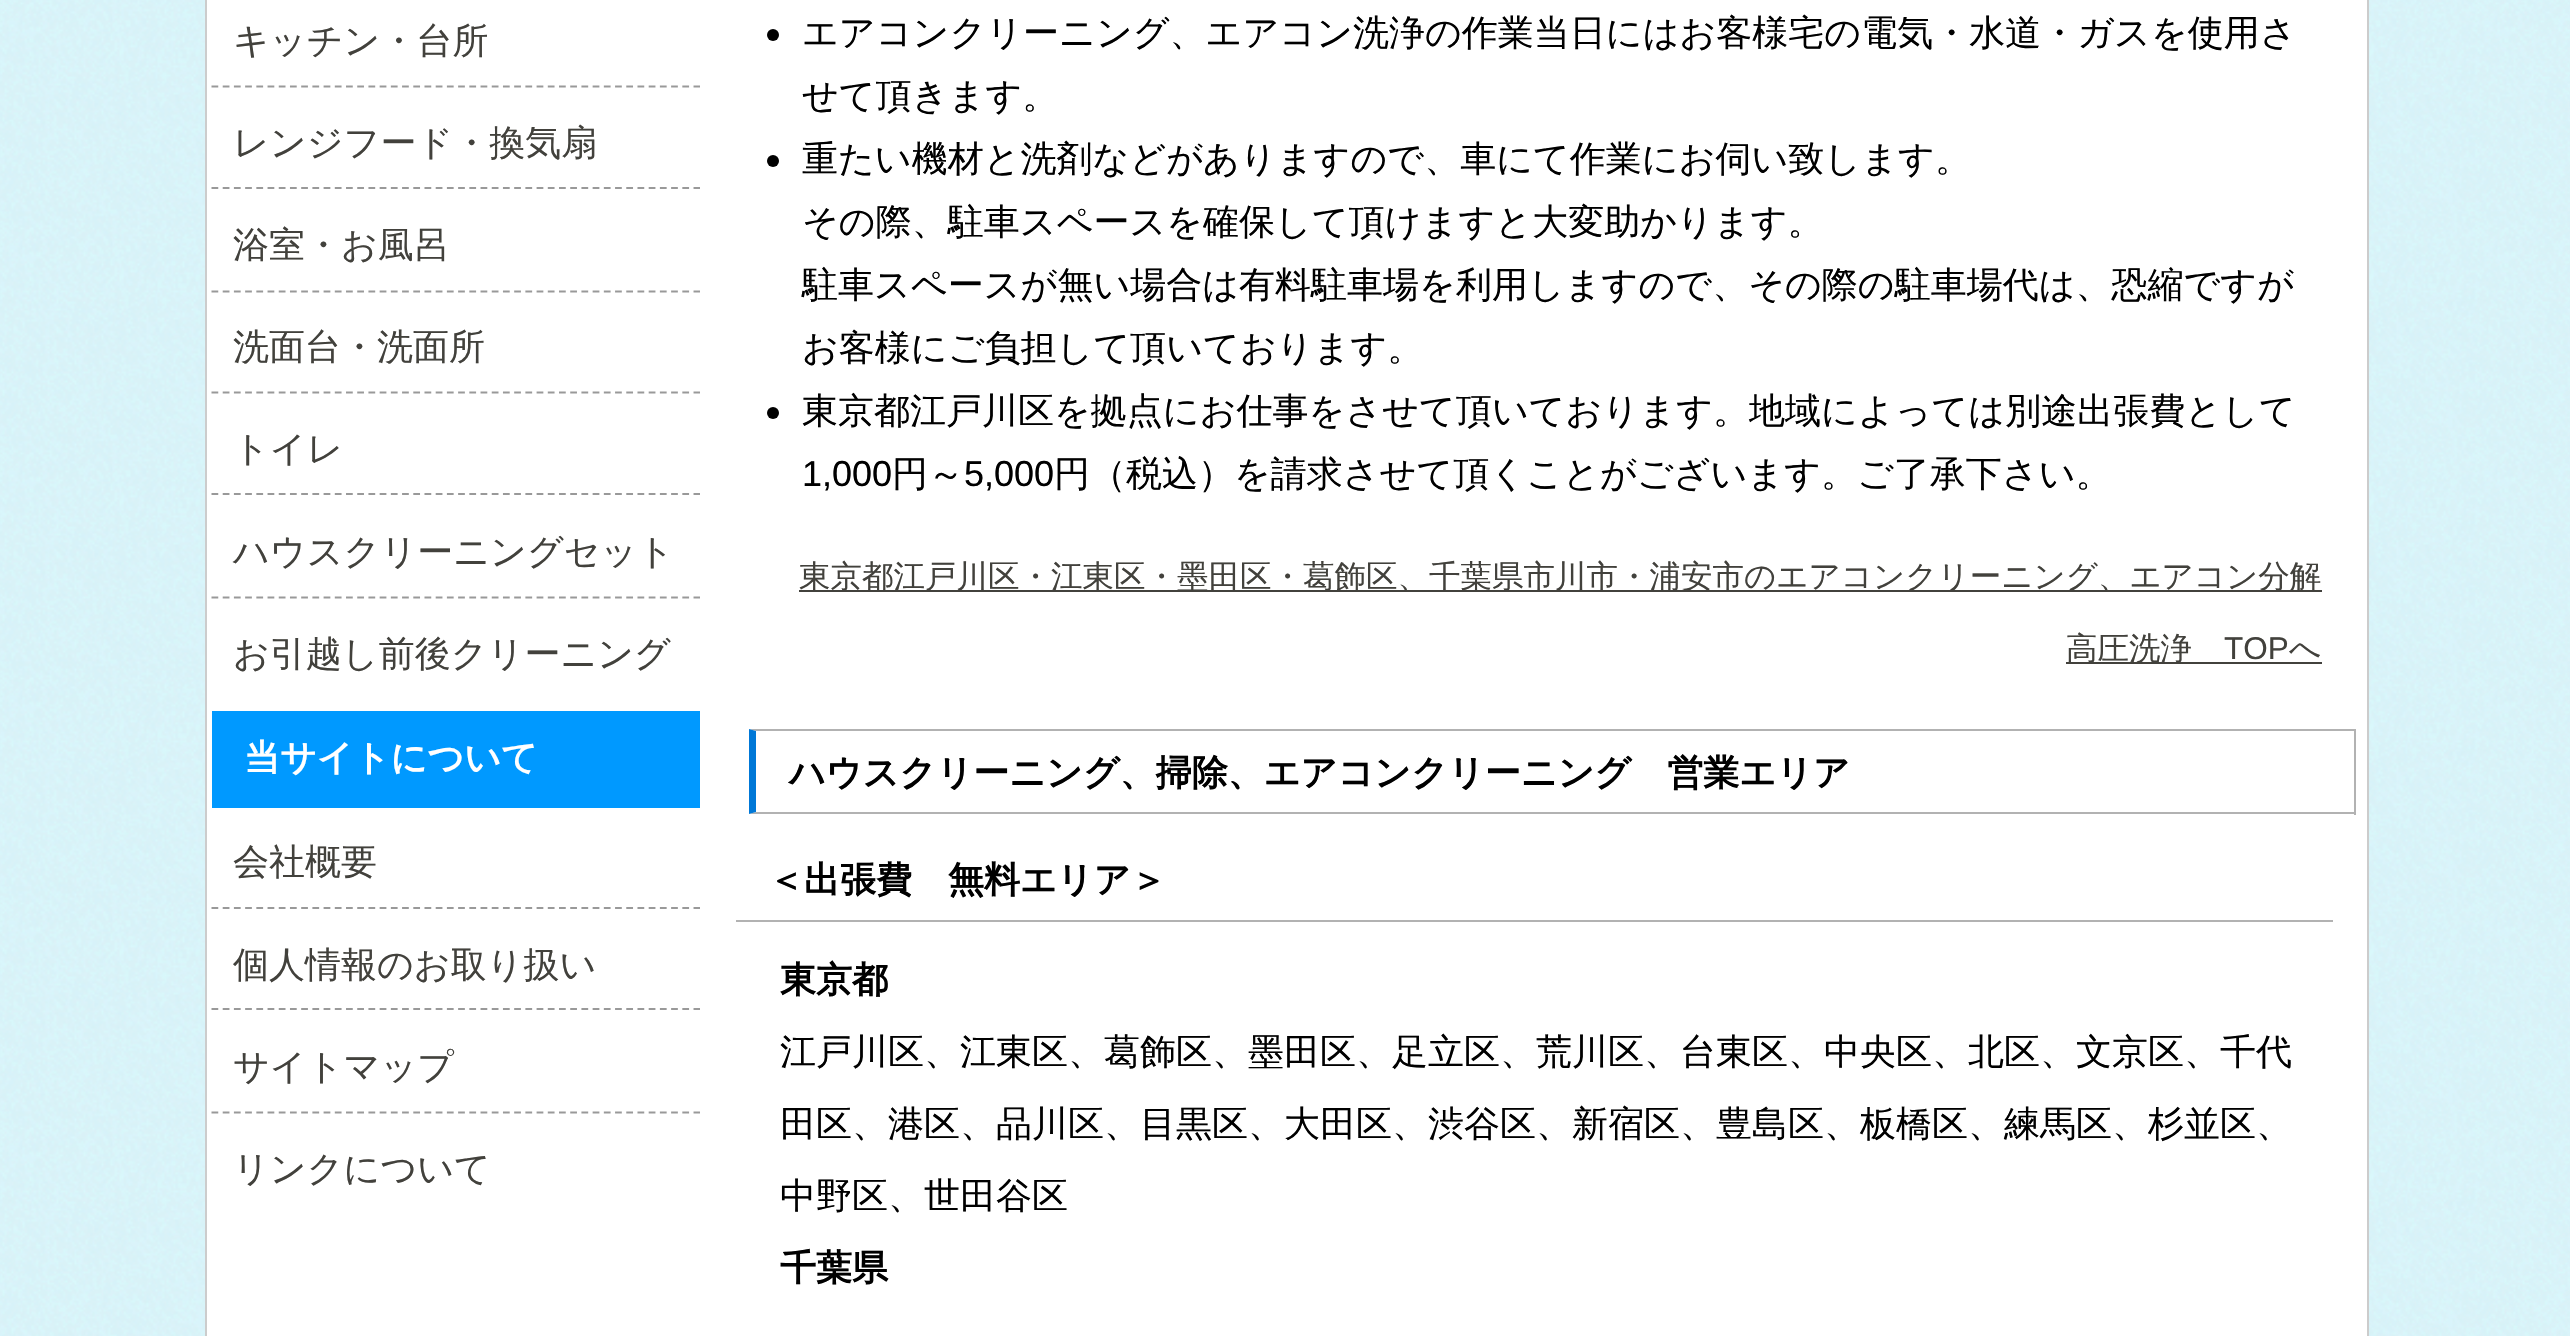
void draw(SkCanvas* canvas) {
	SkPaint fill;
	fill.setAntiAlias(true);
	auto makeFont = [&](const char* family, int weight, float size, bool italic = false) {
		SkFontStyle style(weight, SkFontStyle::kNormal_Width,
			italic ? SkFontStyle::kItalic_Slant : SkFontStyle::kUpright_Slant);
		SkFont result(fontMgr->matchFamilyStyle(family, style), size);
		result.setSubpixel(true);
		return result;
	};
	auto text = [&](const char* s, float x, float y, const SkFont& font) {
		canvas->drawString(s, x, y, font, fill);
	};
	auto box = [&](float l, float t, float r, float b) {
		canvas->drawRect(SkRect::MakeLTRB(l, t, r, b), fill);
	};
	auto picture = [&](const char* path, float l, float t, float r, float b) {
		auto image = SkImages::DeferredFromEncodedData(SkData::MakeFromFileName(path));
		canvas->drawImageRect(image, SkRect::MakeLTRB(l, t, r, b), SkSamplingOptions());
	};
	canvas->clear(0xFFFFFFFF);
	picture("image0.png", 0, 0, 2570, 1336);
	fill.setColor(0xFFFFFFFF);
	canvas->drawRect(SkRect::MakeLTRB(206, -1, 2368, 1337), fill);
	fill.setStyle(SkPaint::kStroke_Style);
	fill.setStrokeWidth(2);
	fill.setColor(0xFFCCCCCC);
	canvas->drawRect(SkRect::MakeLTRB(206, -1, 2368, 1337), fill);
	fill.setStrokeWidth(2.2f);
	fill.setColor(0xFF999999);
	fill.setPathEffect(SkDashPathEffect::Make({{6.75f, 4.46f}}, 0));
	canvas->drawPath(SkPathBuilder().moveTo(211.5f, 86.5f).lineTo(700, 86.5f).detach(), fill);
	fill.setPathEffect(nullptr);
	fill.setPathEffect(SkDashPathEffect::Make({{6.75f, 4.46f}}, 0));
	canvas->drawPath(SkPathBuilder().moveTo(211.5f, 188).lineTo(700, 188).detach(), fill);
	fill.setPathEffect(nullptr);
	fill.setPathEffect(SkDashPathEffect::Make({{6.75f, 4.46f}}, 0));
	canvas->drawPath(SkPathBuilder().moveTo(211.5f, 291.5f).lineTo(700, 291.5f).detach(), fill);
	fill.setPathEffect(nullptr);
	fill.setPathEffect(SkDashPathEffect::Make({{6.75f, 4.46f}}, 0));
	canvas->drawPath(SkPathBuilder().moveTo(211.5f, 392.5f).lineTo(700, 392.5f).detach(), fill);
	fill.setPathEffect(nullptr);
	fill.setPathEffect(SkDashPathEffect::Make({{6.75f, 4.46f}}, 0));
	canvas->drawPath(SkPathBuilder().moveTo(211.5f, 494).lineTo(700, 494).detach(), fill);
	fill.setPathEffect(nullptr);
	fill.setPathEffect(SkDashPathEffect::Make({{6.75f, 4.46f}}, 0));
	canvas->drawPath(SkPathBuilder().moveTo(211.5f, 597.5f).lineTo(700, 597.5f).detach(), fill);
	fill.setPathEffect(nullptr);
	fill.setStyle(SkPaint::kFill_Style);
	fill.setColor(0xFF0099FF);
	box(212, 711, 700, 808);
	fill.setStyle(SkPaint::kStroke_Style);
	fill.setColor(0xFF999999);
	fill.setPathEffect(SkDashPathEffect::Make({{6.75f, 4.46f}}, 0));
	canvas->drawPath(SkPathBuilder().moveTo(211.5f, 908).lineTo(700, 908).detach(), fill);
	fill.setPathEffect(nullptr);
	fill.setPathEffect(SkDashPathEffect::Make({{6.75f, 4.46f}}, 0));
	canvas->drawPath(SkPathBuilder().moveTo(211.5f, 1009).lineTo(700, 1009).detach(), fill);
	fill.setPathEffect(nullptr);
	fill.setPathEffect(SkDashPathEffect::Make({{6.75f, 4.46f}}, 0));
	canvas->drawPath(SkPathBuilder().moveTo(211.5f, 1112.5f).lineTo(700, 1112.5f).detach(), fill);
	fill.setPathEffect(nullptr);
	fill.setStyle(SkPaint::kFill_Style);
	fill.setColor(0xFF000000);
	canvas->drawCircle(773, 35, 6, fill);
	canvas->drawCircle(773, 161, 6, fill);
	canvas->drawCircle(773, 413, 6, fill);
	fill.setColor(0xFF42413C);
	box(799, 590, 2322, 592);
	box(2066, 662, 2322, 664);
	fill.setColor(0xFFB2B2B2);
	canvas->drawPath(SkPathBuilder().moveTo(749, 729).lineTo(2356, 729).lineTo(2354, 731).lineTo(756, 731).close().detach(), fill);
	box(2354, 729, 2356, 815);
	canvas->drawPath(SkPathBuilder().moveTo(2356, 814).lineTo(749, 814).lineTo(756, 812).lineTo(2354, 812).close().detach(), fill);
	fill.setColor(0xFF0078D7);
	canvas->drawPath(SkPathBuilder().moveTo(749, 814).lineTo(749, 729).lineTo(756, 731).lineTo(756, 812).close().detach(), fill);
	fill.setColor(0xFFB2B2B2);
	box(736, 920, 2333, 922);
	auto font1 = makeFont("WenQuanYi Zen Hei", 500, 36);
	fill.setColor(0xFF42413C);
	text("キッチン・台所", 233, 53, font1);
	text("レンジフード・換気扇", 233, 155, font1);
	text("浴室・お風呂", 233, 257, font1);
	text("洗面台・洗面所", 233, 359, font1);
	text("トイレ", 233, 461, font1);
	text("ハウスクリーニングセット", 233, 564, font1);
	text("お引越し前後クリーニング", 233, 666, font1);
	auto font2 = makeFont("WenQuanYi Zen Hei", 700, 36);
	fill.setColor(0xFFFFFFFF);
	text("当サイトについて", 244, 770, font2);
	fill.setColor(0xFF42413C);
	text("会社概要", 233, 874, font1);
	text("個人情報のお取り扱い", 233, 977, font1);
	text("サイトマップ", 233, 1079, font1);
	text("リンクについて", 233, 1181, font1);
	fill.setColor(0xFF000000);
	text("エアコンクリーニング、エアコン洗浄の作業当日にはお客様宅の電気・水道・ガスを使用さ", 802, 45, font1);
	text("せて頂きます。", 802, 108, font1);
	text("重たい機材と洗剤などがありますので、車にて作業にお伺い致します。", 802, 171, font1);
	text("その際、駐車スペースを確保して頂けますと大変助かります。", 802, 234, font1);
	text("駐車スペースが無い場合は有料駐車場を利用しますので、その際の駐車場代は、恐縮ですが", 802, 297, font1);
	text("お客様にご負担して頂いております。", 802, 360, font1);
	text("東京都江戸川区を拠点にお仕事をさせて頂いております。地域によっては別途出張費として", 802, 423, font1);
	auto font3 = makeFont("Liberation Sans", 400, 36);
	text("1,000", 802, 486, font3);
	text("円～", 892, 486, font1);
	text("5,000", 964, 486, font3);
	text("円（税込）を請求させて頂くことがございます。ご了承下さい。", 1054, 486, font1);
	auto font4 = makeFont("WenQuanYi Zen Hei", 500, 31.5f);
	fill.setColor(0xFF42413C);
	text("東京都江戸川区・江東区・墨田区・葛飾区、千葉県市川市・浦安市のエアコンクリーニング、エアコン分解", 799, 587, font4);
	text("高圧洗浄", 2066, 659, font4);
	auto font5 = makeFont("Liberation Sans", 400, 31.5f);
	text("TOP", 2224, 659, font5);
	text("へ", 2289, 659, font4);
	fill.setColor(0xFF000000);
	text("ハウスクリーニング、掃除、エアコンクリーニング　営業エリア", 789, 785, font2);
	text("＜出張費　無料エリア＞", 768, 892, font2);
	text("東京都", 780, 992, font2);
	text("江戸川区、江東区、葛飾区、墨田区、足立区、荒川区、台東区、中央区、北区、文京区、千代", 780, 1064, font1);
	text("田区、港区、品川区、目黒区、大田区、渋谷区、新宿区、豊島区、板橋区、練馬区、杉並区、", 780, 1136, font1);
	text("中野区、世田谷区", 780, 1208, font1);
	text("千葉県", 780, 1280, font2);
}
